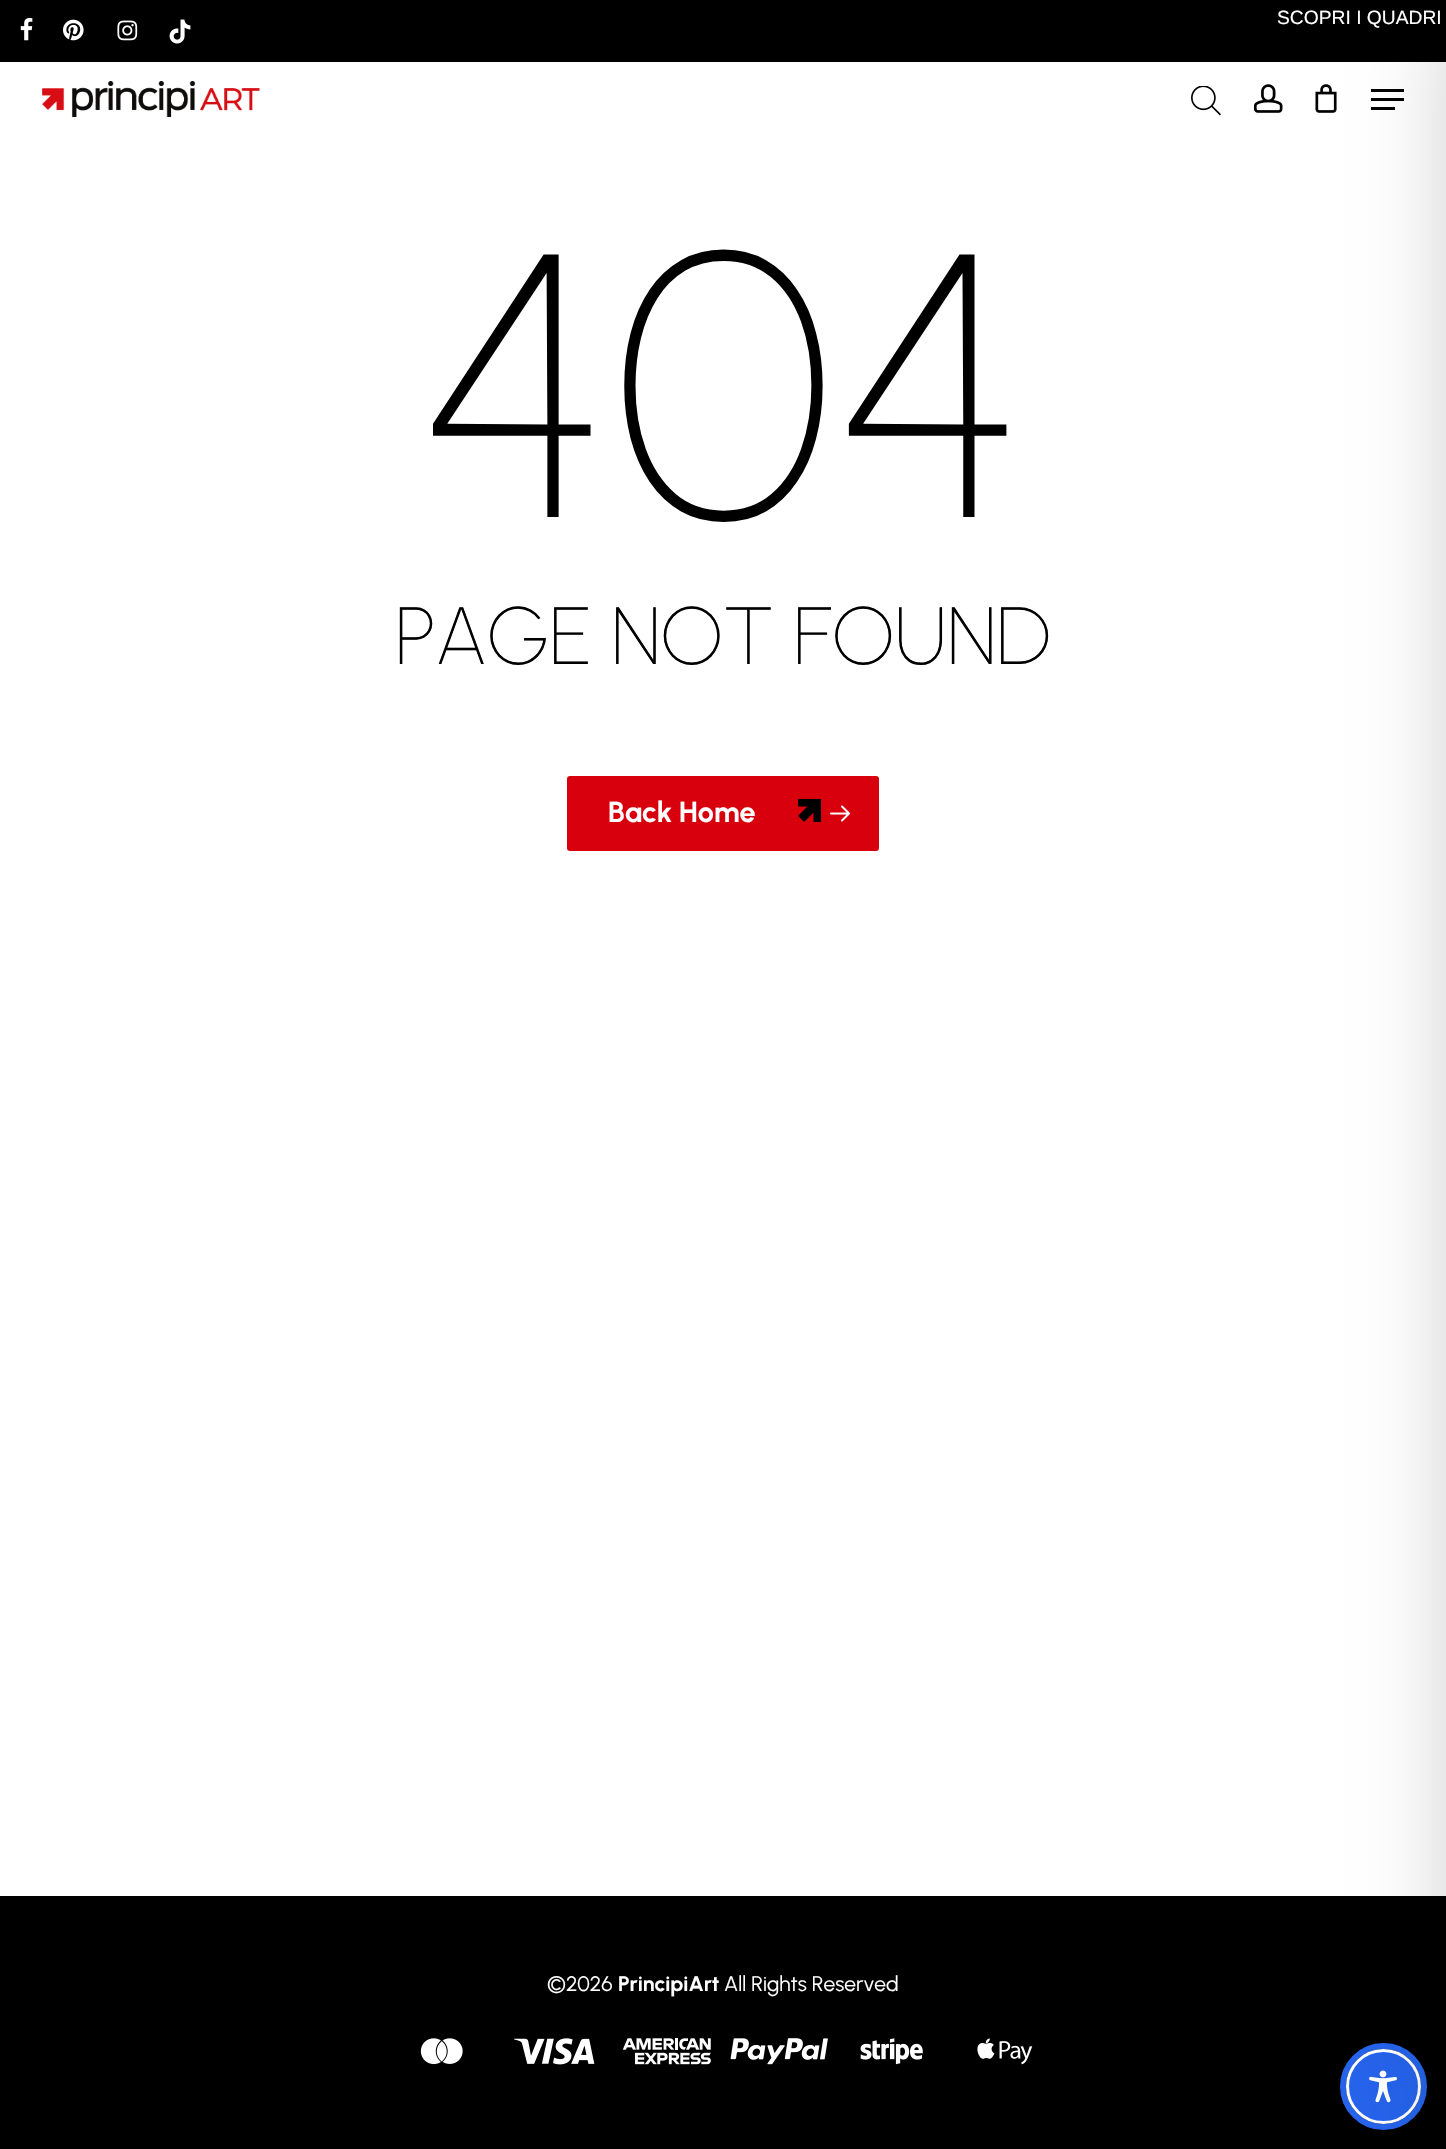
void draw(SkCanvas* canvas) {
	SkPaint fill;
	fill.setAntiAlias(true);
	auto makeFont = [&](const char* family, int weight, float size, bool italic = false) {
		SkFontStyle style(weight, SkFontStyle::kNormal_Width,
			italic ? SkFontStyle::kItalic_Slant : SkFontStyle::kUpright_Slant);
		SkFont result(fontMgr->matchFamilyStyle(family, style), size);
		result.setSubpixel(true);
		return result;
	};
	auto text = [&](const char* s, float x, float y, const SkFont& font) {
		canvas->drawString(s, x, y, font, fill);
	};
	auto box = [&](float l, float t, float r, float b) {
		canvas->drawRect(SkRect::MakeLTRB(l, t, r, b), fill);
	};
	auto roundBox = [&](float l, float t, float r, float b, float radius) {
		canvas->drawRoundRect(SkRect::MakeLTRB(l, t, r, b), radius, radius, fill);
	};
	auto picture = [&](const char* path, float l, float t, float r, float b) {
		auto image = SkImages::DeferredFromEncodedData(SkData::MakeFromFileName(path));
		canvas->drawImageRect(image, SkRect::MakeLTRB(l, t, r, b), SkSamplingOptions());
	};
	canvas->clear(0xFFFFFFFF);
	fill.setColor(0xFF000000);
	box(0, 0, 1446, 62);
	picture("image7.png", 1315, 84, 1337, 113);
	box(1371, 89, 1404, 92);
	box(1371, 107, 1395, 110);
	box(1371, 98, 1404, 101);
	box(0, 1896, 1446, 2149);
	fill.setStyle(SkPaint::kStroke_Style);
	fill.setStrokeWidth(6);
	fill.setColor(0xFF2563EB);
	canvas->drawCircle(1383.5f, 2086.5f, 40.5f, fill);
	fill.setStyle(SkPaint::kFill_Style);
	canvas->drawCircle(1383.5f, 2086.5f, 36, fill);
	fill.setStyle(SkPaint::kStroke_Style);
	fill.setStrokeWidth(3);
	fill.setColor(0xFFFFFFFF);
	canvas->drawCircle(1383.5f, 2086.5f, 36, fill);
	picture("image16.png", 1369, 2070, 1397, 2103);
	fill.setStyle(SkPaint::kFill_Style);
	fill.setColor(0x33000000);
	fill.setMaskFilter(SkMaskFilter::MakeBlur(kNormal_SkBlurStyle, 45));
	canvas->drawRect(SkRect::MakeLTRB(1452, 15, 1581, 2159), fill);
	fill.setMaskFilter(nullptr);
	picture("image0.png", 20, 18, 33, 41);
	picture("image1.png", 63, 19, 84, 41);
	picture("image2.png", 117, 20, 138, 41);
	picture("image3.png", 169, 19, 191, 44);
	picture("image4.png", 42, 81, 260, 117);
	picture("image5.png", 1191, 86, 1221, 116);
	picture("image6.png", 1254, 84, 1283, 113);
	fill.setColor(0xFFD9000D);
	roundBox(567, 776, 879, 851, 3);
	picture("image8.png", 798, 798, 822, 822);
	picture("image9.png", 830, 805, 850, 822);
	picture("image10.png", 420, 2038, 463, 2065);
	picture("image11.png", 514, 2038, 595, 2065);
	picture("image12.png", 622, 2038, 711, 2065);
	picture("image13.png", 730, 2038, 828, 2065);
	picture("image14.png", 860, 2038, 923, 2065);
	picture("image15.png", 977, 2038, 1033, 2065);
	auto font1 = makeFont("Liberation Sans", 400, 19.25f);
	fill.setColor(0xFFFFFFFF);
	text("SCOPRI I QUADRI", 1277, 24, font1);
	auto font2 = makeFont("Urbanist", 100, 375);
	fill.setColor(0xFF000000);
	text("404", 418, 517, font2);
	auto font3 = makeFont("Urbanist", 100, 81);
	text("PAGE NOT FOUND", 395, 664, font3);
	auto font4 = makeFont("Urbanist", 700, 28.75f);
	fill.setColor(0xFFFFFFFF);
	text("Back Home", 608, 822, font4);
	auto font5 = makeFont("Urbanist", 400, 21);
	text("©2026", 547, 1991, font5);
	auto font6 = makeFont("Urbanist", 700, 21);
	text("PrincipiArt", 618, 1991, font6);
	text("All Rights Reserved", 724, 1991, font5);
}
